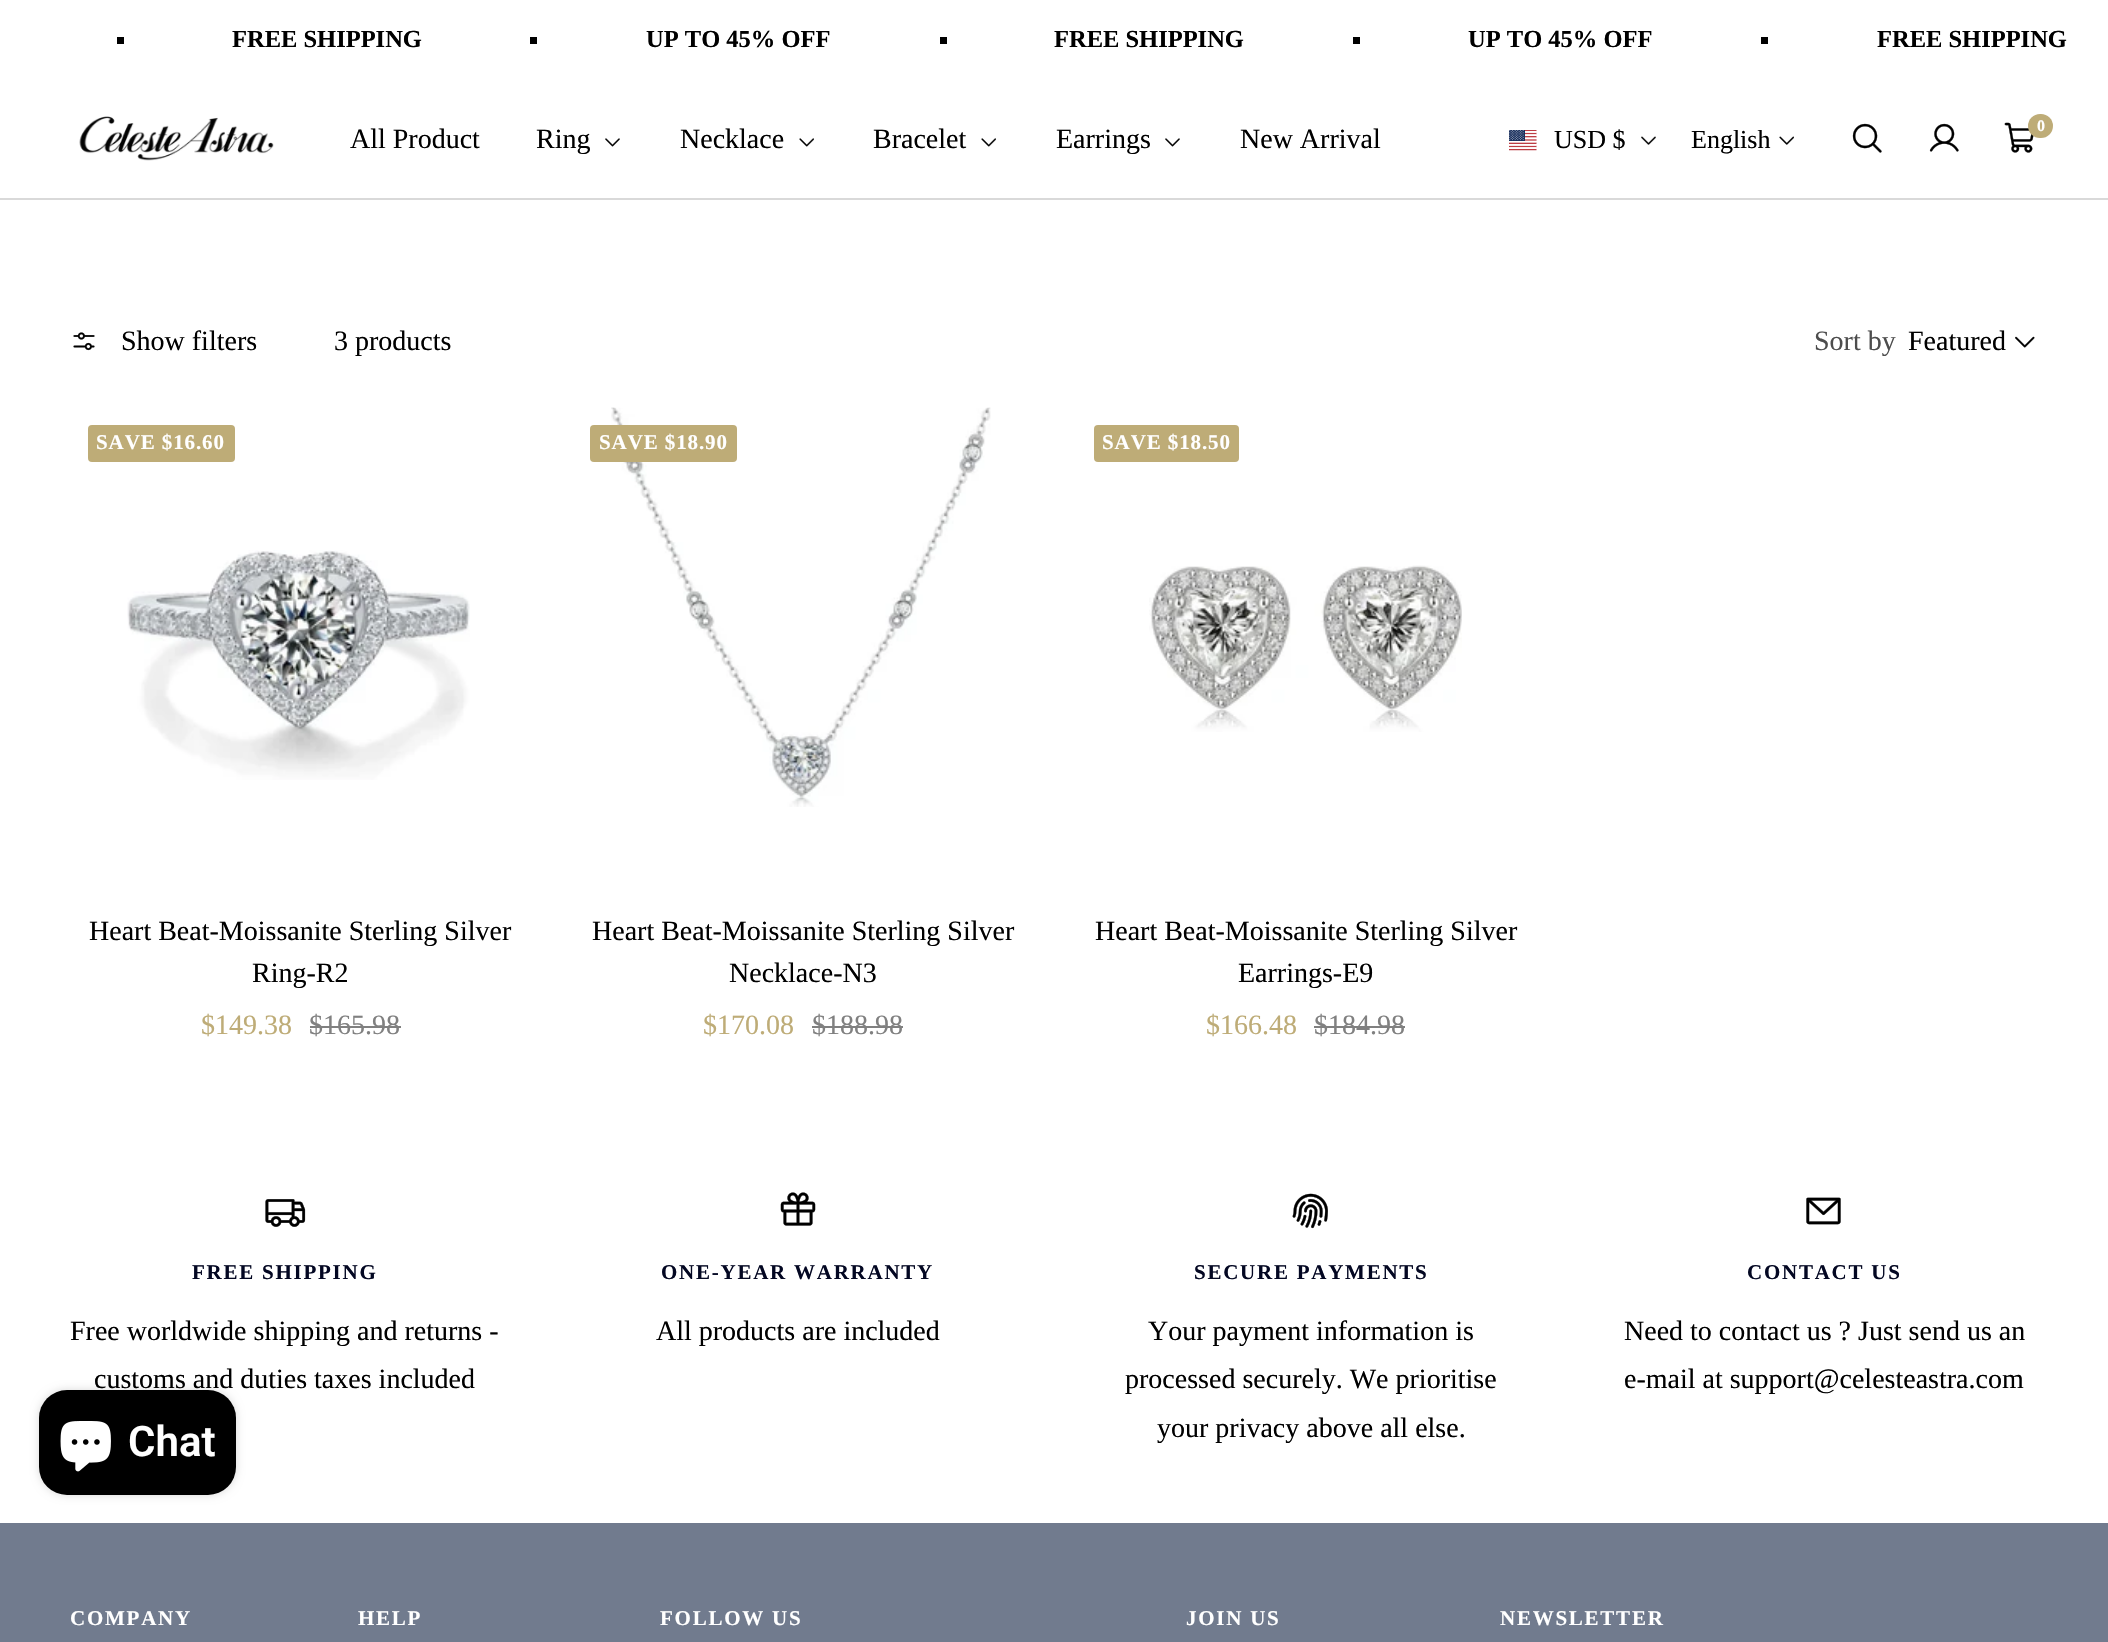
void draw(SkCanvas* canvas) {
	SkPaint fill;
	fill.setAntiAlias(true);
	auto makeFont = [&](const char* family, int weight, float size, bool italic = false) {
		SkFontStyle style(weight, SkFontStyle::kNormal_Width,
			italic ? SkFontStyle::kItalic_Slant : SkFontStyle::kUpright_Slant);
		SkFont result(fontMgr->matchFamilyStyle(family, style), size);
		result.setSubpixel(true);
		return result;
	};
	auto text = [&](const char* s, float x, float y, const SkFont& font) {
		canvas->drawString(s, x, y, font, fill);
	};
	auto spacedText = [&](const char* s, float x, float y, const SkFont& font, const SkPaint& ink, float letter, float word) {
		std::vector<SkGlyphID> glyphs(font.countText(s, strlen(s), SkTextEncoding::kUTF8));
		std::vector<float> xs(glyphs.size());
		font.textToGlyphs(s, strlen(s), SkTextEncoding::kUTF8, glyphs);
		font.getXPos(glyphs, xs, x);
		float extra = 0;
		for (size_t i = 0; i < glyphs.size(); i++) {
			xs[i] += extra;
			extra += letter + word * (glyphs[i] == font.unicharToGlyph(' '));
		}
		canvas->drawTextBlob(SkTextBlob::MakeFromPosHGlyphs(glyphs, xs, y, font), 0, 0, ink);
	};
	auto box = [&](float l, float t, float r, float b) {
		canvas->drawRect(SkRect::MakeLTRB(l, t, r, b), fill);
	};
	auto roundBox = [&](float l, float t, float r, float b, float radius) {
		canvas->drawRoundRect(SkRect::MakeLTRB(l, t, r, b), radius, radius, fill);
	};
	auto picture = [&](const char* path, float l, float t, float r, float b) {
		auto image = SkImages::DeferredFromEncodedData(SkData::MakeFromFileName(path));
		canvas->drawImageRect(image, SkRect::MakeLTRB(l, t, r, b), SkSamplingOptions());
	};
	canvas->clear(0xFFFFFFFF);
	fill.setColor(0xFF000000);
	box(117, 37, 124, 44);
	box(530, 37, 537, 44);
	box(940, 37, 947, 44);
	box(1353, 37, 1360, 44);
	box(1761, 37, 1768, 44);
	fill.setColor(0xFFD9D9D9);
	canvas->drawPath(SkPathBuilder().moveTo(0, 198).lineTo(0, 200).lineTo(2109, 200).lineTo(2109, 82).lineTo(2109, 198).close().detach(), fill);
	picture("image0.png", 79, 116, 274, 161);
	picture("image1.png", 605, 138, 620, 147);
	picture("image2.png", 799, 138, 814, 147);
	picture("image2.png", 981, 138, 996, 147);
	picture("image1.png", 1165, 138, 1180, 147);
	picture("image3.png", 1852, 123, 1882, 153);
	picture("image4.png", 1929, 123, 1959, 152);
	picture("image5.png", 2004, 122, 2034, 153);
	fill.setColor(0xFFBEAC77);
	roundBox(2028, 114, 2053, 138, 12);
	picture("image6.png", 1509, 130, 1537, 151);
	picture("image7.png", 1641, 136, 1656, 145);
	picture("image8.png", 1779, 136, 1794, 145);
	picture("image9.png", 73, 332, 95, 351);
	picture("image10.png", 2015, 336, 2035, 348);
	roundBox(88, 425, 235, 462, 4);
	picture("image11.png", 127, 550, 470, 780);
	fill.setColor(0xFF808080);
	box(310, 1026, 401, 1028);
	picture("image12.png", 611, 407, 991, 807);
	fill.setColor(0xFFBEAC77);
	roundBox(590, 425, 737, 462, 4);
	fill.setColor(0xFF808080);
	box(812, 1026, 903, 1028);
	fill.setColor(0xFFBEAC77);
	roundBox(1094, 425, 1239, 462, 4);
	picture("image13.png", 1149, 565, 1462, 732);
	fill.setColor(0xFF808080);
	box(1314, 1026, 1405, 1028);
	picture("image14.png", 265, 1199, 306, 1227);
	picture("image15.png", 780, 1192, 816, 1226);
	picture("image16.png", 1292, 1193, 1328, 1229);
	picture("image17.png", 1806, 1197, 1841, 1225);
	fill.setColor(0x26000000);
	fill.setMaskFilter(SkMaskFilter::MakeBlur(kNormal_SkBlurStyle, 4.5f));
	canvas->drawRoundRect(SkRect::MakeLTRB(39, 1390, 236, 1495), 28, 28, fill);
	fill.setMaskFilter(nullptr);
	fill.setColor(0xFF000000);
	roundBox(39, 1390, 236, 1495, 28);
	picture("image18.png", 60, 1421, 111, 1472);
	fill.setColor(0xFF717B8E);
	box(0, 1523, 2108, 1642);
	auto font1 = makeFont("Liberation Serif", 700, 24.5f);
	fill.setColor(0xFF000000);
	text("FREE SHIPPING", 232, 47, font1);
	text("UP TO 45% OFF", 646, 47, font1);
	text("FREE SHIPPING", 1054, 47, font1);
	text("UP TO 45% OFF", 1468, 47, font1);
	text("FREE SHIPPING", 1877, 47, font1);
	auto font2 = makeFont("Liberation Serif", 400, 28);
	text("All Product", 350, 148, font2);
	text("Ring", 536, 148, font2);
	text("Necklace", 680, 148, font2);
	text("Bracelet", 873, 148, font2);
	text("Earrings", 1056, 148, font2);
	text("New Arrival", 1240, 148, font2);
	auto font3 = makeFont("Liberation Serif", 700, 16);
	fill.setColor(0xFFFFFFFF);
	text("0", 2037, 131, font3);
	auto font4 = makeFont("Liberation Serif", 400, 26);
	fill.setColor(0xFF000000);
	text("USD $", 1554, 148, font4);
	text("English", 1691, 148, font4);
	text("Show filters", 121, 350, font2);
	text("3 products", 334, 350, font2);
	fill.setColor(0xFF4D4D4D);
	text("Sort by", 1814, 350, font2);
	fill.setColor(0xFF000000);
	text("Featured", 1908, 350, font2);
	auto font5 = makeFont("Liberation Serif", 700, 21);
	fill.setColor(0xFFFFFFFF);
	spacedText("SAVE $16.60", 96, 449, font5, fill, 0.9f, 0);
	fill.setColor(0xFF000000);
	text("Heart Beat-Moissanite Sterling Silver", 89, 940, font2);
	text("Ring-R2", 252, 982, font2);
	fill.setColor(0xFFBEAC77);
	text("$149.38", 201, 1034, font2);
	fill.setColor(0xFF808080);
	text("$165.98", 309, 1034, font2);
	fill.setColor(0xFFFFFFFF);
	spacedText("SAVE $18.90", 599, 449, font5, fill, 0.9f, 0);
	fill.setColor(0xFF000000);
	text("Heart Beat-Moissanite Sterling Silver", 592, 940, font2);
	text("Necklace-N3", 729, 982, font2);
	fill.setColor(0xFFBEAC77);
	text("$170.08", 703, 1034, font2);
	fill.setColor(0xFF808080);
	text("$188.98", 812, 1034, font2);
	fill.setColor(0xFFFFFFFF);
	spacedText("SAVE $18.50", 1102, 449, font5, fill, 0.9f, 0);
	fill.setColor(0xFF000000);
	text("Heart Beat-Moissanite Sterling Silver", 1095, 940, font2);
	text("Earrings-E9", 1238, 982, font2);
	fill.setColor(0xFFBEAC77);
	text("$166.48", 1206, 1034, font2);
	fill.setColor(0xFF808080);
	text("$184.98", 1314, 1034, font2);
	fill.setColor(0xFF030722);
	spacedText("FREE SHIPPING", 192, 1279, font5, fill, 1.75f, 0);
	fill.setColor(0xFF000000);
	text("Free worldwide shipping and returns -", 70, 1340, font2);
	text("customs and duties taxes included", 94, 1388, font2);
	fill.setColor(0xFF030722);
	spacedText("ONE-YEAR WARRANTY", 661, 1279, font5, fill, 1.75f, 0);
	fill.setColor(0xFF000000);
	text("All products are included", 656, 1340, font2);
	fill.setColor(0xFF030722);
	spacedText("SECURE PAYMENTS", 1194, 1279, font5, fill, 1.75f, 0);
	fill.setColor(0xFF000000);
	text("Your payment information is", 1148, 1340, font2);
	text("processed securely. We prioritise", 1125, 1388, font2);
	text("your privacy above all else.", 1157, 1437, font2);
	fill.setColor(0xFF030722);
	spacedText("CONTACT US", 1747, 1279, font5, fill, 1.75f, 0);
	fill.setColor(0xFF000000);
	text("Need to contact us ? Just send us an", 1624, 1340, font2);
	text("e-mail at support@celesteastra.com", 1624, 1388, font2);
	auto font6 = makeFont("Roboto", 600, 42);
	fill.setColor(0xFFFFFFFF);
	text("Chat", 128, 1456, font6);
	spacedText("COMPANY", 70, 1625, font5, fill, 1.75f, 0);
	spacedText("HELP", 358, 1625, font5, fill, 1.75f, 0);
	spacedText("FOLLOW US", 660, 1625, font5, fill, 1.75f, 0);
	spacedText("JOIN US", 1186, 1625, font5, fill, 1.75f, 0);
	spacedText("NEWSLETTER", 1500, 1625, font5, fill, 1.75f, 0);
}
